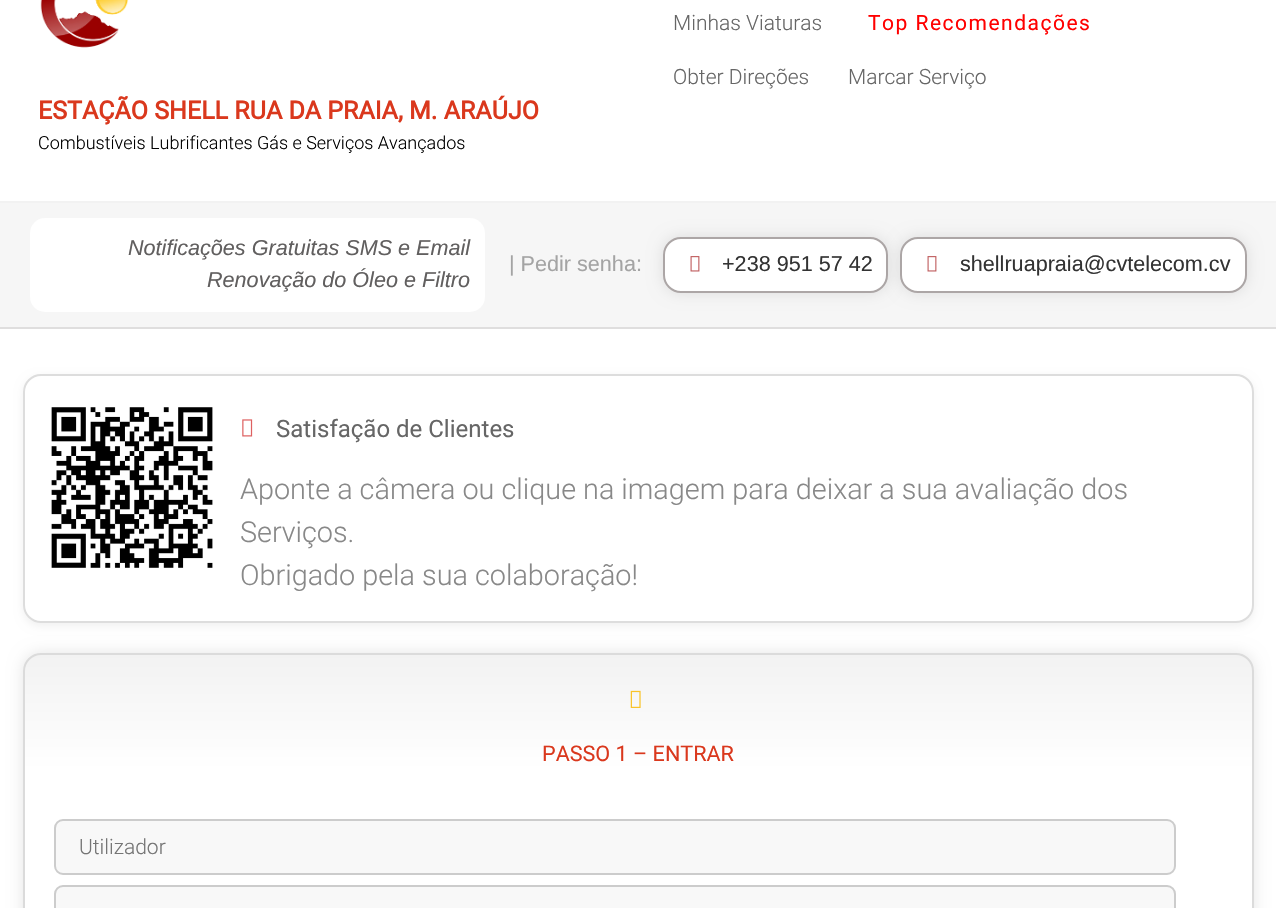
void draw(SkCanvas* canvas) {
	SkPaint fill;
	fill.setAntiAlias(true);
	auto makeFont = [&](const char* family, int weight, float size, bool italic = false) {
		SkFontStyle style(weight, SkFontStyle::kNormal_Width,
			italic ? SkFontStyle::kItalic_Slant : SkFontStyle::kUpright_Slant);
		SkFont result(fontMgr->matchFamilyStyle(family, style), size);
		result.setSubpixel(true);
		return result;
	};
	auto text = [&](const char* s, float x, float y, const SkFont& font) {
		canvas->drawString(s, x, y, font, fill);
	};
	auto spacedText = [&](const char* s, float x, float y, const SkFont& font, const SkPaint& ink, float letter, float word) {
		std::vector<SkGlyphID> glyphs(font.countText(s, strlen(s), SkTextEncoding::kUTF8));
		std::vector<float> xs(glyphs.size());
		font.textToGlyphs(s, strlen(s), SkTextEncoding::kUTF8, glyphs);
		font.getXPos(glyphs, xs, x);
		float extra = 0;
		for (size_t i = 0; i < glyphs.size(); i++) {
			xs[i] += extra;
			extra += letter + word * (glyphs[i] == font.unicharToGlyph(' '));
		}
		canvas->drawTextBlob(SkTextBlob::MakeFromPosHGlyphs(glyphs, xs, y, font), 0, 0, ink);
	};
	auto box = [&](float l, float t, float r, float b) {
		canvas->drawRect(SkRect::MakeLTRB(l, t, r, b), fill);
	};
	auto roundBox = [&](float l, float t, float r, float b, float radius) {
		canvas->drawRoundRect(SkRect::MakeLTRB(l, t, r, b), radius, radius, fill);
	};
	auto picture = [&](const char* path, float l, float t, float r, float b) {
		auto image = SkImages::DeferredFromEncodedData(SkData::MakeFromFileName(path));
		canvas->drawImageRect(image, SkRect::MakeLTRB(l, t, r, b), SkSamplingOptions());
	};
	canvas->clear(0xFFFFFFFF);
	fill.setColor(0xFFF2F2F2);
	box(0, 201, 1276, 203);
	picture("image0.png", 40, 0, 129, 48);
	fill.setColor(0xFFF6F6F6);
	box(0, 203, 1276, 327);
	fill.setColor(0xFFDFDEDE);
	box(0, 327, 1276, 329);
	fill.setColor(0xFFFFFFFF);
	roundBox(30, 218, 485, 312, 15);
	fill.setColor(0x1A000000);
	fill.setMaskFilter(SkMaskFilter::MakeBlur(kNormal_SkBlurStyle, 7.5f));
	canvas->drawRoundRect(SkRect::MakeLTRB(663, 237, 888, 293), 18, 18, fill);
	fill.setMaskFilter(nullptr);
	fill.setColor(0xFFFFFFFF);
	canvas->drawRoundRect(SkRect::MakeLTRB(664, 238, 887, 292), 17, 17, fill);
	fill.setStyle(SkPaint::kStroke_Style);
	fill.setStrokeWidth(2);
	fill.setColor(0xFFACA6A6);
	canvas->drawRoundRect(SkRect::MakeLTRB(664, 238, 887, 292), 17, 17, fill);
	picture("image1.png", 690, 256, 700, 272);
	fill.setStyle(SkPaint::kFill_Style);
	fill.setColor(0x1A000000);
	fill.setMaskFilter(SkMaskFilter::MakeBlur(kNormal_SkBlurStyle, 7.5f));
	canvas->drawRoundRect(SkRect::MakeLTRB(900, 237, 1247, 293), 18, 18, fill);
	fill.setMaskFilter(nullptr);
	fill.setColor(0xFFFFFFFF);
	canvas->drawRoundRect(SkRect::MakeLTRB(901, 238, 1246, 292), 17, 17, fill);
	fill.setStyle(SkPaint::kStroke_Style);
	fill.setColor(0xFFACA6A6);
	canvas->drawRoundRect(SkRect::MakeLTRB(901, 238, 1246, 292), 17, 17, fill);
	picture("image1.png", 927, 256, 937, 272);
	canvas->save();
	canvas->clipPath(SkPathBuilder(SkPathFillType::kEvenOdd).moveTo(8, 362).lineTo(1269, 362).lineTo(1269, 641).lineTo(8, 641).close().moveTo(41, 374).lineTo(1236, 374).cubicTo(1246, 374, 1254, 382, 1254, 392).lineTo(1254, 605).cubicTo(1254, 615, 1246, 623, 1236, 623).lineTo(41, 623).cubicTo(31, 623, 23, 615, 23, 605).lineTo(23, 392).cubicTo(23, 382, 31, 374, 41, 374).close().detach(), true);
	fill.setStyle(SkPaint::kFill_Style);
	fill.setColor(0x0F000000);
	fill.setMaskFilter(SkMaskFilter::MakeBlur(kNormal_SkBlurStyle, 4.5f));
	canvas->drawRoundRect(SkRect::MakeLTRB(23, 377, 1254, 626), 18, 18, fill);
	fill.setMaskFilter(nullptr);
	canvas->restore();
	fill.setStyle(SkPaint::kStroke_Style);
	fill.setColor(0xFFDDDDDD);
	canvas->drawRoundRect(SkRect::MakeLTRB(24, 375, 1253, 622), 17, 17, fill);
	picture("image2.png", 51, 407, 213, 568);
	picture("image3.png", 242, 419, 253, 437);
	canvas->save();
	canvas->clipPath(SkPathBuilder(SkPathFillType::kEvenOdd).moveTo(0, 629).lineTo(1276, 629).lineTo(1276, 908).lineTo(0, 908).close().moveTo(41, 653).lineTo(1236, 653).cubicTo(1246, 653, 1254, 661, 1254, 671).lineTo(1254, 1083).cubicTo(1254, 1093, 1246, 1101, 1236, 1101).lineTo(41, 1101).cubicTo(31, 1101, 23, 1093, 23, 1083).lineTo(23, 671).cubicTo(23, 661, 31, 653, 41, 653).close().detach(), true);
	fill.setStyle(SkPaint::kFill_Style);
	fill.setColor(0x1A000000);
	fill.setMaskFilter(SkMaskFilter::MakeBlur(kNormal_SkBlurStyle, 7.5f));
	canvas->drawRoundRect(SkRect::MakeLTRB(23, 653, 1254, 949), 18, 18, fill);
	fill.setMaskFilter(nullptr);
	canvas->restore();
	canvas->save();
	canvas->clipPath(SkPathBuilder().moveTo(41, 653).lineTo(1236, 653).cubicTo(1246, 653, 1254, 661, 1254, 671).lineTo(1254, 1083).cubicTo(1254, 1093, 1246, 1101, 1236, 1101).lineTo(41, 1101).cubicTo(31, 1101, 23, 1093, 23, 1083).lineTo(23, 671).cubicTo(23, 661, 31, 653, 41, 653).close().detach(), true);
	{
		const SkColor colors[] = {0xFFF2F2F2, 0x00F2F2F2};
		const float stops[] = {0, 0.26f};
		const SkPoint ends[] = {{638, 654}, {638, 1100}};
		fill.setShader(SkGradientShader::MakeLinear(ends, colors, stops, 2, SkTileMode::kClamp));
		fill.setAlpha(255);
	}
	box(23, 654, 1254, 767);
	canvas->restore();
	fill.setStyle(SkPaint::kStroke_Style);
	fill.setShader(nullptr);
	fill.setColor(0xFFDBDBDB);
	canvas->drawRoundRect(SkRect::MakeLTRB(24, 654, 1253, 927), 17, 17, fill);
	picture("image4.png", 630, 690, 641, 708);
	fill.setStyle(SkPaint::kFill_Style);
	fill.setColor(0xFFF8F8F8);
	canvas->drawRoundRect(SkRect::MakeLTRB(55, 820, 1175, 874), 8, 8, fill);
	fill.setStyle(SkPaint::kStroke_Style);
	fill.setColor(0xFFCCCCCC);
	canvas->drawRoundRect(SkRect::MakeLTRB(55, 820, 1175, 874), 8, 8, fill);
	fill.setStyle(SkPaint::kFill_Style);
	fill.setColor(0xFFF8F8F8);
	canvas->drawRoundRect(SkRect::MakeLTRB(55, 886, 1175, 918), 8, 8, fill);
	fill.setStyle(SkPaint::kStroke_Style);
	fill.setColor(0xFFCCCCCC);
	canvas->drawRoundRect(SkRect::MakeLTRB(55, 886, 1175, 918), 8, 8, fill);
	auto font1 = makeFont("Roboto", 300, 21);
	fill.setStyle(SkPaint::kFill_Style);
	fill.setColor(0xFF666666);
	text("Minhas Viaturas", 673, 30, font1);
	auto font2 = makeFont("Roboto", 400, 21);
	fill.setColor(0xFFFF0000);
	spacedText("Top Recomendações", 868, 30, font2, fill, 1.5f, 0);
	fill.setColor(0xFF666666);
	text("Obter Direções", 673, 84, font1);
	text("Marcar Serviço", 848, 84, font1);
	auto font3 = makeFont("Roboto", 700, 25);
	fill.setColor(0xFFDA381D);
	text("ESTAÇÃO SHELL RUA DA PRAIA, M. ARAÚJO", 38, 119, font3);
	auto font4 = makeFont("Roboto", 300, 18);
	fill.setColor(0xFF000000);
	text("Combustíveis Lubrificantes Gás e Serviços Avançados", 38, 149, font4);
	auto font5 = makeFont("Liberation Sans", 400, 21.6f, true);
	fill.setColor(0xFF615F5F);
	text("Notificações Gratuitas SMS e Email", 128, 255, font5);
	text("Renovação do Óleo e Filtro", 207, 287, font5);
	auto font6 = makeFont("Liberation Sans", 400, 21.6f);
	fill.setColor(0xFFA4A4A4);
	text("| Pedir senha:", 509, 271, font6);
	fill.setColor(0xFF333333);
	text("+238 951 57 42", 722, 271, font6);
	text("shellruapraia@cvtelecom.cv", 960, 271, font6);
	auto font7 = makeFont("Roboto", 400, 24);
	fill.setColor(0xFF666666);
	text("Satisfação de Clientes", 276, 437, font7);
	auto font8 = makeFont("Roboto", 300, 28.8f);
	fill.setColor(0xFF888888);
	text("Aponte a câmera ou clique na imagem para deixar a sua avaliação dos", 240, 499, font8);
	text("Serviços.", 240, 542, font8);
	text("Obrigado pela sua colaboração!", 240, 585, font8);
	auto font9 = makeFont("Roboto", 400, 21.6f);
	fill.setColor(0xFFDA381D);
	text("PASSO 1 – ENTRAR", 542, 761, font9);
	fill.setColor(0xFF757575);
	text("Utilizador", 79, 854, font1);
}
